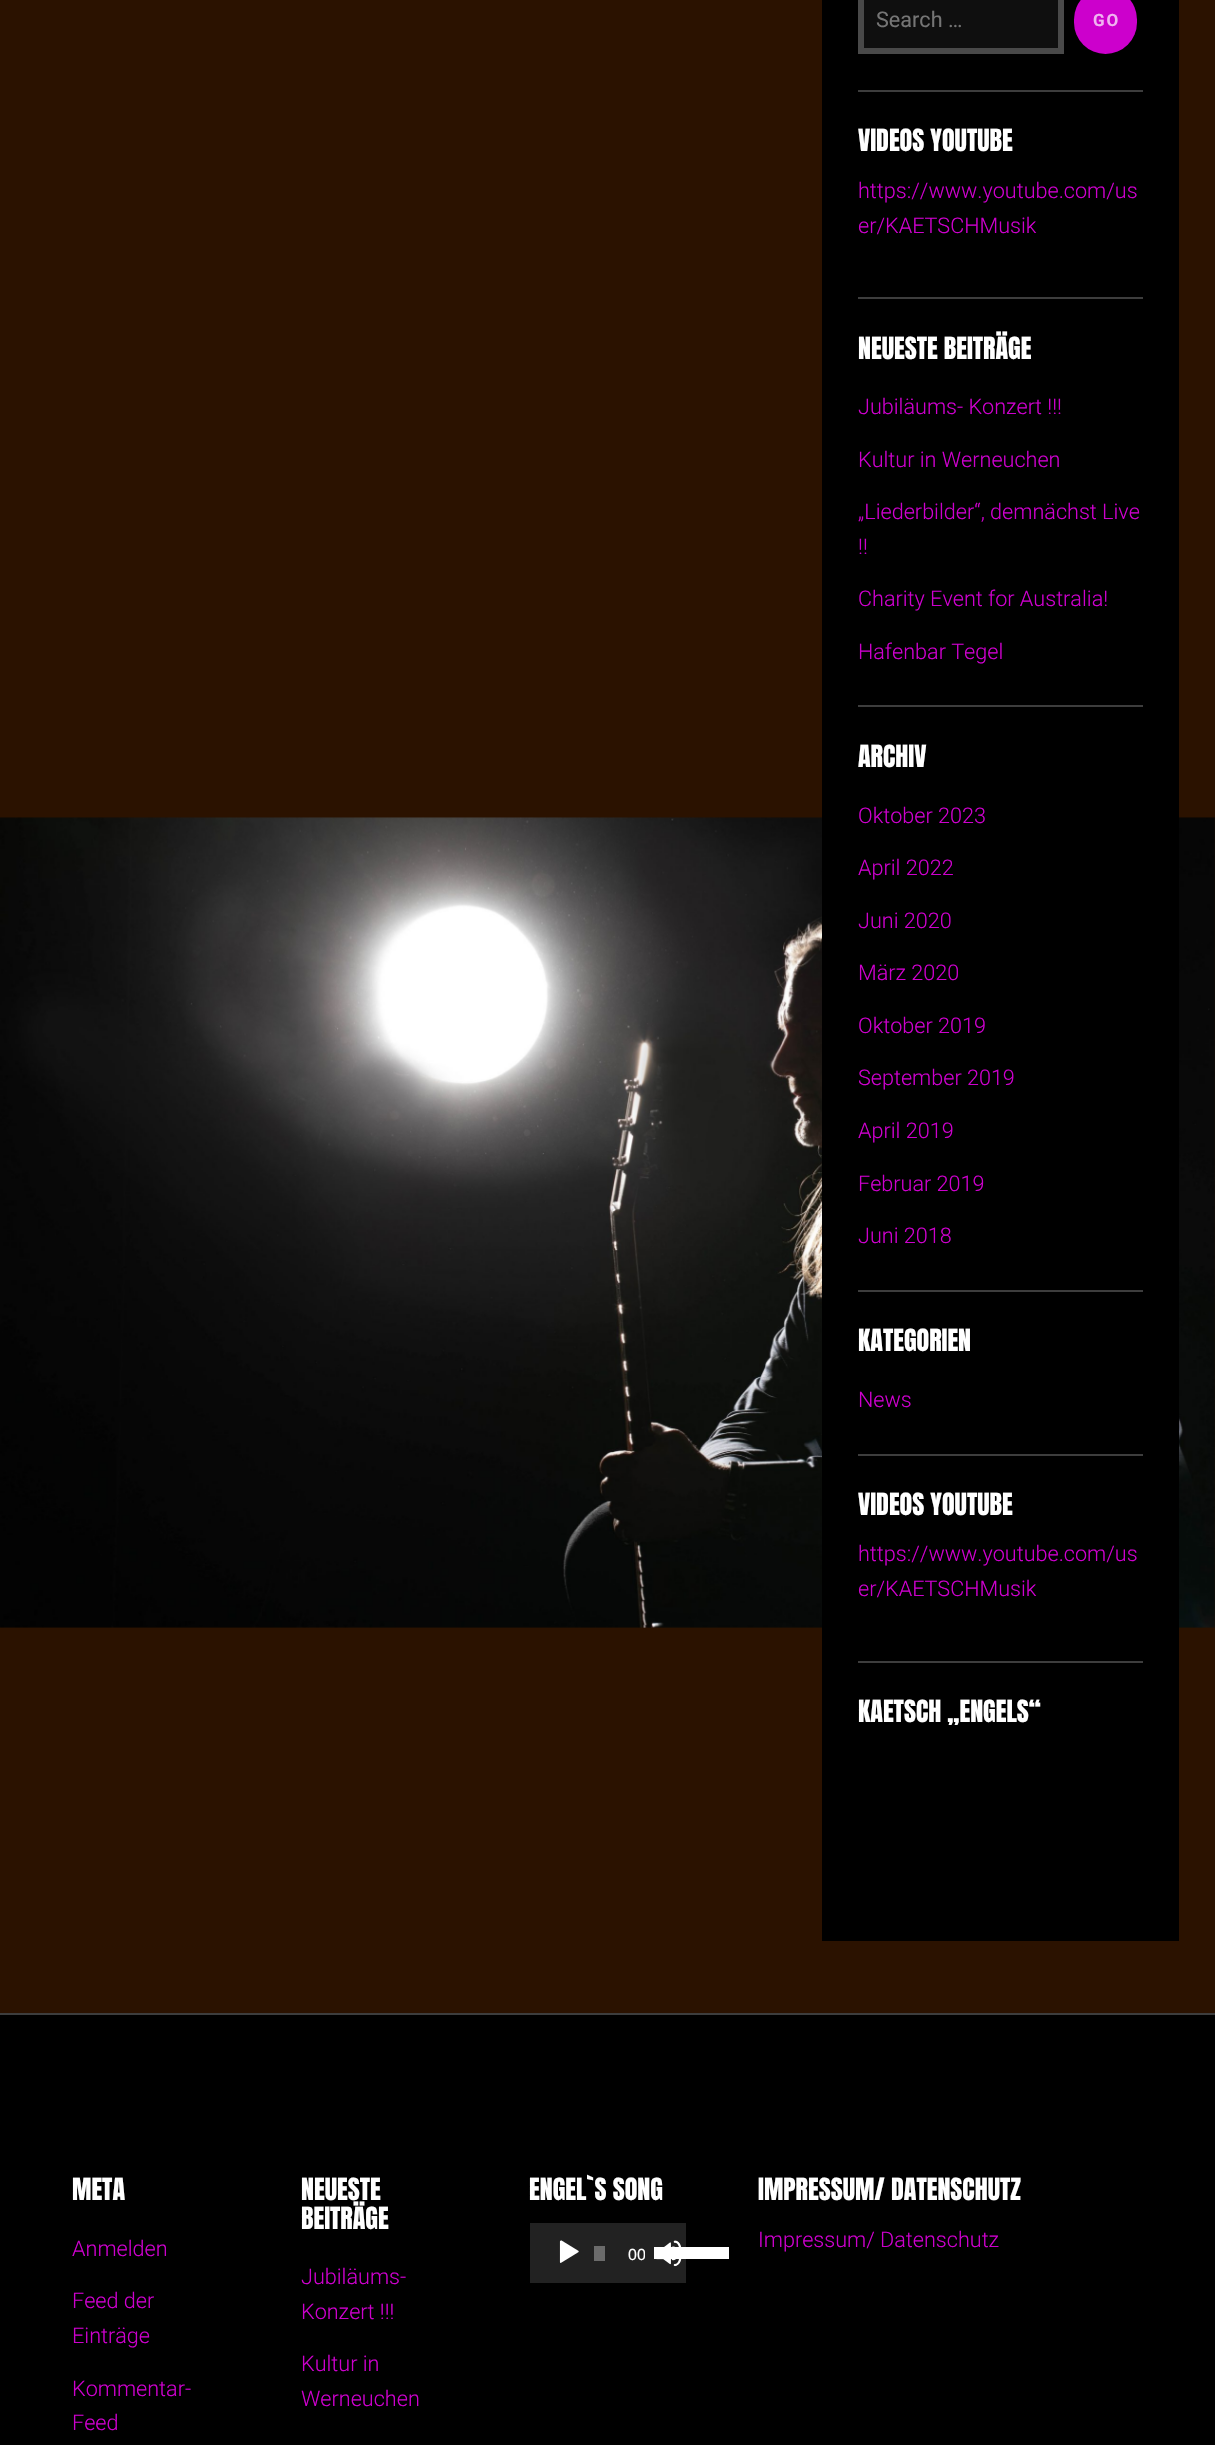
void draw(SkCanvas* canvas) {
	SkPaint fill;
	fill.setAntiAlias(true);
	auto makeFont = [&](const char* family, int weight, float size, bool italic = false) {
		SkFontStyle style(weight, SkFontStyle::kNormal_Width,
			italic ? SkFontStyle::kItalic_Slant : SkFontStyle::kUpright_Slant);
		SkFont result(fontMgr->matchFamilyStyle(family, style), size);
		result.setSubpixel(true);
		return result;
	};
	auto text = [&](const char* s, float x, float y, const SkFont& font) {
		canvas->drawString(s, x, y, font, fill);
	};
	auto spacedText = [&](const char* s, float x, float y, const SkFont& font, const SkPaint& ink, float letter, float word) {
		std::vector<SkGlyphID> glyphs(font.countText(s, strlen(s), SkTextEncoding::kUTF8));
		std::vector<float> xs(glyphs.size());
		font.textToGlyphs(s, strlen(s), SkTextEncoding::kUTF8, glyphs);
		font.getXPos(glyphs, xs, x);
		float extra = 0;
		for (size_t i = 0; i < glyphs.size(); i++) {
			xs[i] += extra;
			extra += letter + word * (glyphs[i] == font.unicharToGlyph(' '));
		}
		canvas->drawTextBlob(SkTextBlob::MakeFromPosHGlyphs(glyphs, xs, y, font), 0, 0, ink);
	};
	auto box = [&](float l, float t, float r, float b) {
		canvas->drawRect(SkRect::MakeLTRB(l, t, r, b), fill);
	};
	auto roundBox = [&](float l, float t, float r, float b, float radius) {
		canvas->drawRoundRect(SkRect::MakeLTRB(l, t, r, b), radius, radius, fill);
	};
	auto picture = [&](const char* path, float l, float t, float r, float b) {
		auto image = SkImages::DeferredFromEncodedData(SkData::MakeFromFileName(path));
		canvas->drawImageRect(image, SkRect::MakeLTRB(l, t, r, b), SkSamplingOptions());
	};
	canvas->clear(0xFF2B1200);
	picture("image0.png", 0, 817, 1215, 1628);
	fill.setColor(0xFF000000);
	box(822, 0, 1179, 1941);
	fill.setColor(0xFF3D3D3D);
	box(858, 90, 1143, 92);
	fill.setColor(0xFF0F0F0F);
	canvas->drawRect(SkRect::MakeLTRB(861, -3, 1061, 51), fill);
	fill.setStyle(SkPaint::kStroke_Style);
	fill.setStrokeWidth(6);
	fill.setColor(0xFF494949);
	canvas->drawRect(SkRect::MakeLTRB(861, -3, 1061, 51), fill);
	fill.setStyle(SkPaint::kFill_Style);
	fill.setColor(0xFFCC00CC);
	roundBox(1074, -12, 1137, 54, 31.5f);
	fill.setColor(0xFF3D3D3D);
	box(858, 297, 1143, 299);
	box(858, 705, 1143, 707);
	box(858, 1290, 1143, 1292);
	box(858, 1454, 1143, 1456);
	box(858, 1661, 1143, 1663);
	fill.setColor(0xFF000000);
	box(0, 2015, 1215, 2445);
	fill.setColor(0xFF3D3D3D);
	box(0, 2013, 1215, 2015);
	fill.setColor(0xFF222222);
	box(530, 2223, 686, 2283);
	picture("image1.png", 559, 2240, 579, 2263);
	fill.setColor(0xFF6B6B6B);
	box(594, 2246, 605, 2261);
	picture("image2.png", 656, 2240, 682, 2267);
	fill.setColor(0xFFFFFFFF);
	box(654, 2247, 729, 2259);
	auto font1 = makeFont("Roboto", 400, 21.6f);
	fill.setColor(0xFF757575);
	text("Search …", 876, 27, font1);
	auto font2 = makeFont("Roboto", 700, 17);
	fill.setColor(0xFFF0B3F0);
	spacedText("GO", 1093, 26, font2, fill, 2, 0);
	auto font3 = makeFont("Anton", 400, 26);
	fill.setColor(0xFFFFFFFF);
	text("VIDEOS YOUTUBE", 858, 151, font3);
	auto font4 = makeFont("Roboto", 300, 21.6f);
	fill.setColor(0xFFCC00CC);
	text("https://www.youtube.com/us", 858, 198, font4);
	text("er/KAETSCHMusik", 858, 233, font4);
	fill.setColor(0xFFFFFFFF);
	text("NEUESTE BEITRÄGE", 858, 359, font3);
	fill.setColor(0xFFCC00CC);
	text("Jubiläums- Konzert !!!", 858, 414, font4);
	text("Kultur in Werneuchen", 858, 467, font4);
	text("„Liederbilder“, demnächst Live", 858, 519, font4);
	text("!!", 858, 554, font4);
	text("Charity Event for Australia!", 858, 606, font4);
	text("Hafenbar Tegel", 858, 659, font4);
	fill.setColor(0xFFFFFFFF);
	text("ARCHIV", 858, 767, font3);
	fill.setColor(0xFFCC00CC);
	text("Oktober 2023", 858, 823, font4);
	text("April 2022", 858, 875, font4);
	text("Juni 2020", 858, 928, font4);
	text("März 2020", 858, 980, font4);
	text("Oktober 2019", 858, 1033, font4);
	text("September 2019", 858, 1085, font4);
	text("April 2019", 858, 1138, font4);
	text("Februar 2019", 858, 1191, font4);
	text("Juni 2018", 858, 1243, font4);
	fill.setColor(0xFFFFFFFF);
	text("KATEGORIEN", 858, 1351, font3);
	fill.setColor(0xFFCC00CC);
	text("News", 858, 1407, font4);
	fill.setColor(0xFFFFFFFF);
	text("VIDEOS YOUTUBE", 858, 1515, font3);
	fill.setColor(0xFFCC00CC);
	text("https://www.youtube.com/us", 858, 1561, font4);
	text("er/KAETSCHMusik", 858, 1596, font4);
	fill.setColor(0xFFFFFFFF);
	text("KAETSCH „ENGELS“", 858, 1722, font3);
	text("META", 72, 2200, font3);
	fill.setColor(0xFFCC00CC);
	text("Anmelden", 72, 2256, font4);
	text("Feed der", 72, 2308, font4);
	text("Einträge", 72, 2343, font4);
	text("Kommentar-", 72, 2396, font4);
	text("Feed", 72, 2430, font4);
	fill.setColor(0xFFFFFFFF);
	text("NEUESTE", 301, 2200, font3);
	text("BEITRÄGE", 301, 2229, font3);
	fill.setColor(0xFFCC00CC);
	text("Jubiläums-", 301, 2284, font4);
	text("Konzert !!!", 301, 2319, font4);
	text("Kultur in", 301, 2371, font4);
	text("Werneuchen", 301, 2406, font4);
	fill.setColor(0xFFFFFFFF);
	text("ENGEL`S SONG", 529, 2200, font3);
	canvas->save();
	canvas->clipRect(SkRect::MakeLTRB(620, 2223, 645, 2283));
	auto font5 = makeFont("Liberation Sans", 400, 16);
	text("00", 628, 2260, font5);
	canvas->restore();
	text("IMPRESSUM/ DATENSCHUTZ", 758, 2200, font3);
	fill.setColor(0xFFCC00CC);
	text("Impressum/ Datenschutz", 758, 2247, font4);
}
